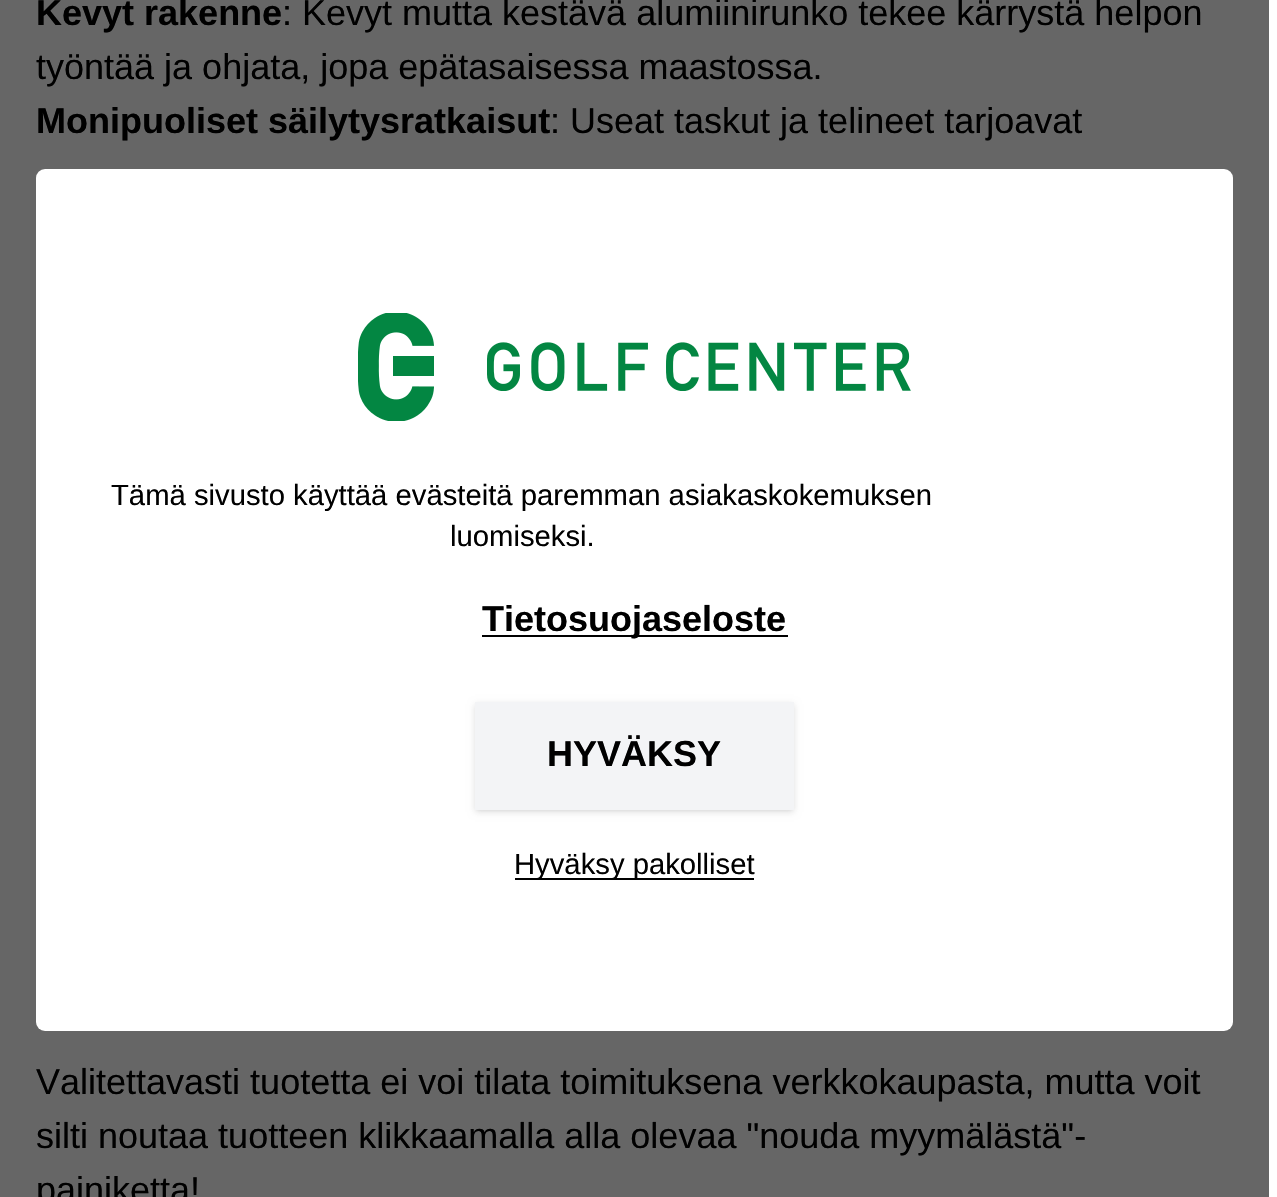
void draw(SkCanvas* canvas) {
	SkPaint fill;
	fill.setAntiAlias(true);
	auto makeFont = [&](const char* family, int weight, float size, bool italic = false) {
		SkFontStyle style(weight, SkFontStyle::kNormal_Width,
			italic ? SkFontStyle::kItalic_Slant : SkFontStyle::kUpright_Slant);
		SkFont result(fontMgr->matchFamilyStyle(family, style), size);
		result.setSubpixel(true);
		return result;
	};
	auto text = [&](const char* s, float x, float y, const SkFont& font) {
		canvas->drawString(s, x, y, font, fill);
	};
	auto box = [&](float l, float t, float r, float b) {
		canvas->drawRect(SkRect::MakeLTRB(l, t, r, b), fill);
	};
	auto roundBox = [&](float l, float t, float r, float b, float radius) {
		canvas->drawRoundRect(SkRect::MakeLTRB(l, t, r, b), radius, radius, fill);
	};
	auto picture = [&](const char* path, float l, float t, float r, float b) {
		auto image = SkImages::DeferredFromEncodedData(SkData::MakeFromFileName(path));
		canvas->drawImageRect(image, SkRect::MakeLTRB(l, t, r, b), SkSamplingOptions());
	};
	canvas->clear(0xFFFFFFFF);
	fill.setColor(0xFF666666);
	box(0, 0, 1269, 1197);
	fill.setColor(0xFFFFFFFF);
	roundBox(36, 169, 1233, 1031, 9);
	picture("image0.png", 358, 313, 911, 421);
	fill.setColor(0xFF000000);
	box(482, 635, 788, 637);
	fill.setColor(0x1A000000);
	fill.setMaskFilter(SkMaskFilter::MakeBlur(kNormal_SkBlurStyle, 2));
	canvas->drawRect(SkRect::MakeLTRB(477, 707, 792, 810), fill);
	fill.setMaskFilter(nullptr);
	fill.setMaskFilter(SkMaskFilter::MakeBlur(kNormal_SkBlurStyle, 3.5f));
	canvas->drawRect(SkRect::MakeLTRB(475, 704, 794, 812), fill);
	fill.setMaskFilter(nullptr);
	fill.setColor(0xFFF3F4F6);
	box(475, 702, 794, 810);
	fill.setColor(0xFF000000);
	box(515, 878, 754, 880);
	auto font1 = makeFont("Liberation Sans", 700, 36);
	text("Kevyt rakenne", 36, 25, font1);
	auto font2 = makeFont("Liberation Sans", 400, 36);
	text(": Kevyt mutta kestävä alumiinirunko tekee kärrystä helpon", 282, 25, font2);
	text("työntää ja ohjata, jopa epätasaisessa maastossa.", 36, 79, font2);
	text("Monipuoliset säilytysratkaisut", 36, 133, font1);
	text(": Useat taskut ja telineet tarjoavat", 550, 133, font2);
	text("Valitettavasti tuotetta ei voi tilata toimituksena verkkokaupasta, mutta voit", 36, 1094, font2);
	text("silti noutaa tuotteen klikkaamalla alla olevaa \"nouda myymälästä\"-", 36, 1148, font2);
	text("painiketta!", 36, 1202, font2);
	auto font3 = makeFont("Liberation Sans", 400, 29.25f);
	text("Tämä sivusto käyttää evästeitä paremman asiakaskokemuksen", 111, 505, font3);
	text("luomiseksi.", 450, 546, font3);
	text("Tietosuojaseloste", 482, 631, font1);
	text("HYVÄKSY", 547, 766, font1);
	text("Hyväksy pakolliset", 514, 874, font3);
}
